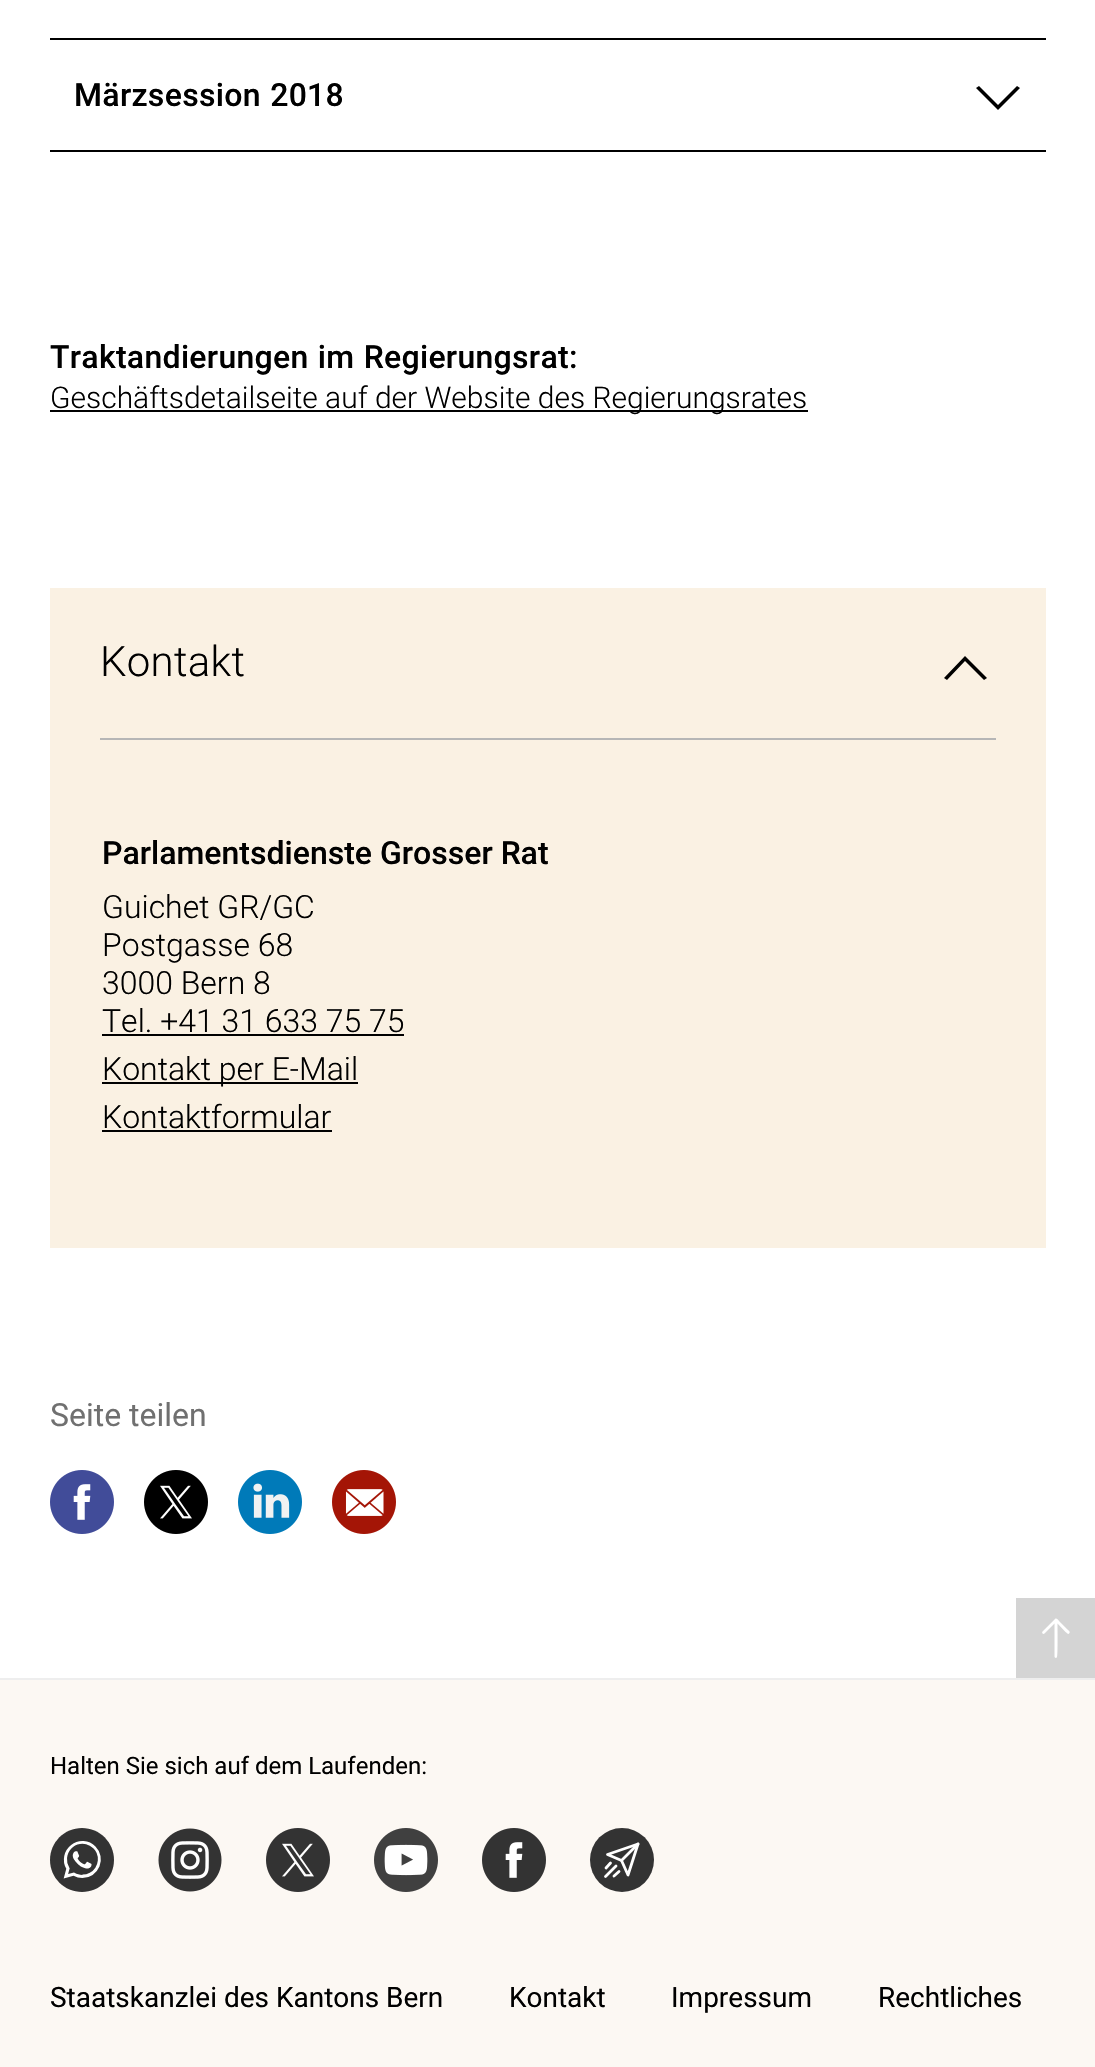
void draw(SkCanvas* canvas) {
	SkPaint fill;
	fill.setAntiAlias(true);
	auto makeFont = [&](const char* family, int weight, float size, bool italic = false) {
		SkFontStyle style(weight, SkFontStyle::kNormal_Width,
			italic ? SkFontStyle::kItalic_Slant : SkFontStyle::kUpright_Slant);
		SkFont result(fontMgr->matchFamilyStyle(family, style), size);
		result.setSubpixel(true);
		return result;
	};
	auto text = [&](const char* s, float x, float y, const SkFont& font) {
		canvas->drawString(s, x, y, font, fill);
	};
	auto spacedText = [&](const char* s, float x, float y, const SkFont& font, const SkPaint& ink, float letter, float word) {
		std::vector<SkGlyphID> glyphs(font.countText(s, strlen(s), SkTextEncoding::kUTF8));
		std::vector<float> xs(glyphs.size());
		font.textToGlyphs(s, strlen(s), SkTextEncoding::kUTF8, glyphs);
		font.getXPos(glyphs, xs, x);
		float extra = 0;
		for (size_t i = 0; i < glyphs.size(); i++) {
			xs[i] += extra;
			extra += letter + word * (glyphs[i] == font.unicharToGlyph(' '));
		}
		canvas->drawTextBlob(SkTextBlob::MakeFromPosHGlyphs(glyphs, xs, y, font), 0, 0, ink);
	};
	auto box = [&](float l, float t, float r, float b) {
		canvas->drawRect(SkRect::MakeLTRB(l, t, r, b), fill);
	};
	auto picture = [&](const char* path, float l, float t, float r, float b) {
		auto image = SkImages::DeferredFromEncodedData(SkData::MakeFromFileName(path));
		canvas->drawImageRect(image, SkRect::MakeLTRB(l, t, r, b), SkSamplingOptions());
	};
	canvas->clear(0xFFFFFFFF);
	fill.setColor(0xFF000000);
	box(50, 38, 1046, 40);
	box(50, 150, 1046, 152);
	canvas->drawPath(SkPathBuilder().moveTo(1017, 86).lineTo(998, 105).lineTo(979, 86).lineTo(976, 88).lineTo(998, 110).lineTo(1020, 88).close().detach(), fill);
	box(50, 410, 808, 412);
	fill.setColor(0xFFFAF1E3);
	box(50, 588, 1046, 1248);
	fill.setColor(0xFF000000);
	canvas->drawPath(SkPathBuilder().moveTo(947, 680).lineTo(965, 661).lineTo(984, 680).lineTo(987, 678).lineTo(965, 656).lineTo(944, 678).close().detach(), fill);
	fill.setColor(0xFFB6B6B6);
	box(100, 738, 996, 740);
	fill.setColor(0xFF000000);
	box(102, 1034, 404, 1036);
	box(102, 1082, 358, 1084);
	box(102, 1130, 332, 1132);
	picture("image0.png", 50, 1470, 114, 1534);
	picture("image1.png", 144, 1470, 208, 1534);
	picture("image2.png", 238, 1470, 302, 1534);
	picture("image3.png", 332, 1470, 396, 1534);
	fill.setColor(0xFFD4D4D4);
	box(1016, 1598, 1095, 1678);
	fill.setColor(0xFFFFFFFF);
	canvas->drawPath(SkPathBuilder().moveTo(1042.5f, 1631.5f).cubicTo(1042, 1632, 1042, 1633, 1042.5f, 1633.5f).cubicTo(1043, 1634, 1044, 1634, 1044.5f, 1633.5f).lineTo(1054.5f, 1623.5f).lineTo(1054.5f, 1656.5f).cubicTo(1054.5f, 1658, 1056.5f, 1658.5f, 1057, 1657).cubicTo(1058, 1656.5f, 1057.5f, 1627, 1057.5f, 1623.5f).lineTo(1065.5f, 1632).cubicTo(1066.5f, 1632.5f, 1067.5f, 1634, 1068.5f, 1634).lineTo(1069.5f, 1633).cubicTo(1070.5f, 1631.5f, 1068, 1630, 1067.5f, 1629.5f).lineTo(1059, 1621).cubicTo(1058.5f, 1620.5f, 1056.5f, 1617.5f, 1055, 1619).close().detach(), fill);
	fill.setColor(0xFFFCF8F3);
	box(0, 1680, 1095, 2067);
	fill.setColor(0xFFEEEEEE);
	box(0, 1678, 1095, 1680);
	picture("image4.png", 50, 1828, 114, 1892);
	picture("image5.png", 158, 1828, 222, 1892);
	picture("image6.png", 266, 1828, 330, 1892);
	picture("image7.png", 374, 1828, 438, 1892);
	picture("image8.png", 482, 1828, 546, 1892);
	fill.setColor(0xFF333333);
	canvas->drawCircle(622, 1860, 32, fill);
	fill.setStyle(SkPaint::kStroke_Style);
	fill.setStrokeWidth(2.8f);
	fill.setStrokeCap(SkPaint::kRound_Cap);
	fill.setStrokeJoin(SkPaint::kRound_Join);
	fill.setColor(0xFFFFFFFF);
	canvas->drawPath(SkPathBuilder().moveTo(607.5f, 1854.5f).lineTo(638, 1844).lineTo(628, 1875).lineTo(621.5f, 1860.5f).close().detach(), fill);
	fill.setStrokeJoin(SkPaint::kMiter_Join);
	canvas->drawPath(SkPathBuilder().moveTo(638, 1844).lineTo(621.5f, 1860.5f).moveTo(616, 1866).lineTo(605.5f, 1876.5f).moveTo(610.5f, 1863).lineTo(606, 1868).moveTo(619, 1871.5f).lineTo(614, 1876).detach(), fill);
	auto font1 = makeFont("Roboto", 500, 32);
	fill.setStyle(SkPaint::kFill_Style);
	fill.setColor(0xFF000000);
	spacedText("Märzsession 2018", 74, 106, font1, fill, 0.3f, 1);
	spacedText("Traktandierungen im Regierungsrat:", 50, 368, font1, fill, 0.3f, 1);
	auto font2 = makeFont("Roboto", 300, 30);
	text("Geschäftsdetailseite auf der Website des Regierungsrates", 50, 408, font2);
	auto font3 = makeFont("Roboto", 300, 42);
	spacedText("Kontakt", 100, 676, font3, fill, 0.3f, 0);
	text("Parlamentsdienste Grosser Rat", 102, 864, font1);
	auto font4 = makeFont("Roboto", 300, 32);
	text("Guichet GR/GC", 102, 918, font4);
	text("Postgasse 68", 102, 956, font4);
	text("3000 Bern 8", 102, 994, font4);
	text("Tel. +41 31 633 75 75", 102, 1032, font4);
	text("Kontakt per E-Mail", 102, 1080, font4);
	text("Kontaktformular", 102, 1128, font4);
	auto font5 = makeFont("Roboto", 400, 32);
	fill.setColor(0xFF707070);
	text("Seite teilen", 50, 1426, font5);
	auto font6 = makeFont("Roboto", 400, 24);
	fill.setColor(0xFF000000);
	text("Halten Sie sich auf dem Laufenden:", 50, 1774, font6);
	auto font7 = makeFont("Roboto", 400, 28);
	text("Staatskanzlei des Kantons Bern", 50, 2007, font7);
	text("Kontakt", 509, 2007, font7);
	text("Impressum", 671, 2007, font7);
	text("Rechtliches", 878, 2007, font7);
}
